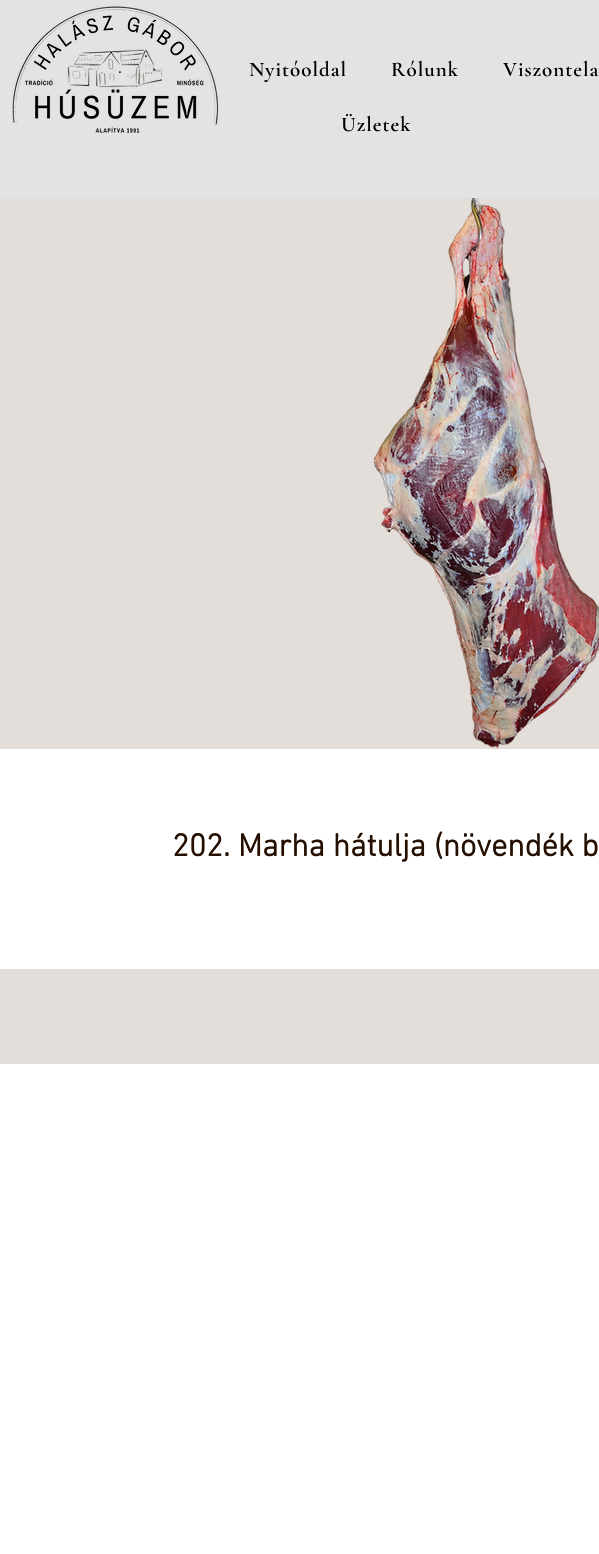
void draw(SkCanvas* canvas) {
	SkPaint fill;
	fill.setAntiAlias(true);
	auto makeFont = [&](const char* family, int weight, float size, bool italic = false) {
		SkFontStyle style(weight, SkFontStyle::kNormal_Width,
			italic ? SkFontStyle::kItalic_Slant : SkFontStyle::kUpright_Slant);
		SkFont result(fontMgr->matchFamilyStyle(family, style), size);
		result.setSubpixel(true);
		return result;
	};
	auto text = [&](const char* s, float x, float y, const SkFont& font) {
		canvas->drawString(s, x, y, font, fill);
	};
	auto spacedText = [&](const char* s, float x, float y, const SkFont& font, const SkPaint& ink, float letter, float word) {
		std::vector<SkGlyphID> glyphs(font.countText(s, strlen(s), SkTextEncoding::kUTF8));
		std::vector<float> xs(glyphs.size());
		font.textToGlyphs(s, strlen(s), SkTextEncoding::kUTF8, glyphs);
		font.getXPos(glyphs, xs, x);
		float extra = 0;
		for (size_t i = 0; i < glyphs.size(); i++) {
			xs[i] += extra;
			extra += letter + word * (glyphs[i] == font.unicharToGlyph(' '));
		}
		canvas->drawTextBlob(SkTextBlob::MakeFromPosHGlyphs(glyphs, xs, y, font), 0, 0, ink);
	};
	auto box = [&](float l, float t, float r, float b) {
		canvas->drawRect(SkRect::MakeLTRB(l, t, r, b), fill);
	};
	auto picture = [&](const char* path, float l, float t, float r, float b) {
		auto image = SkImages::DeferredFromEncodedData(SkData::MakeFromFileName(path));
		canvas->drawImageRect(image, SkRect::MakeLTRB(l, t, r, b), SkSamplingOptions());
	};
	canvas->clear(0xFFFFFFFF);
	fill.setColor(0xFFE3E3E3);
	box(0, 0, 599, 198);
	picture("image0.png", 12, 6, 219, 133);
	fill.setColor(0xFFE4DEDA);
	box(0, 198, 599, 749);
	picture("image1.png", 373, 198, 599, 749);
	box(0, 969, 599, 1064);
	auto font1 = makeFont("Cormorant Garamond", 600, 21);
	fill.setColor(0xFF000000);
	spacedText("Nyitóoldal", 249, 76, font1, fill, 1, 0);
	spacedText("Rólunk", 391, 76, font1, fill, 1, 0);
	spacedText("Viszontela", 503, 76, font1, fill, 1, 0);
	spacedText("Üzletek", 341, 131, font1, fill, 1, 0);
	auto font2 = makeFont("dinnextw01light", 700, 32);
	fill.setColor(0xFF240F00);
	text("202. Marha hátulja (növendék b", 172, 856, font2);
}
